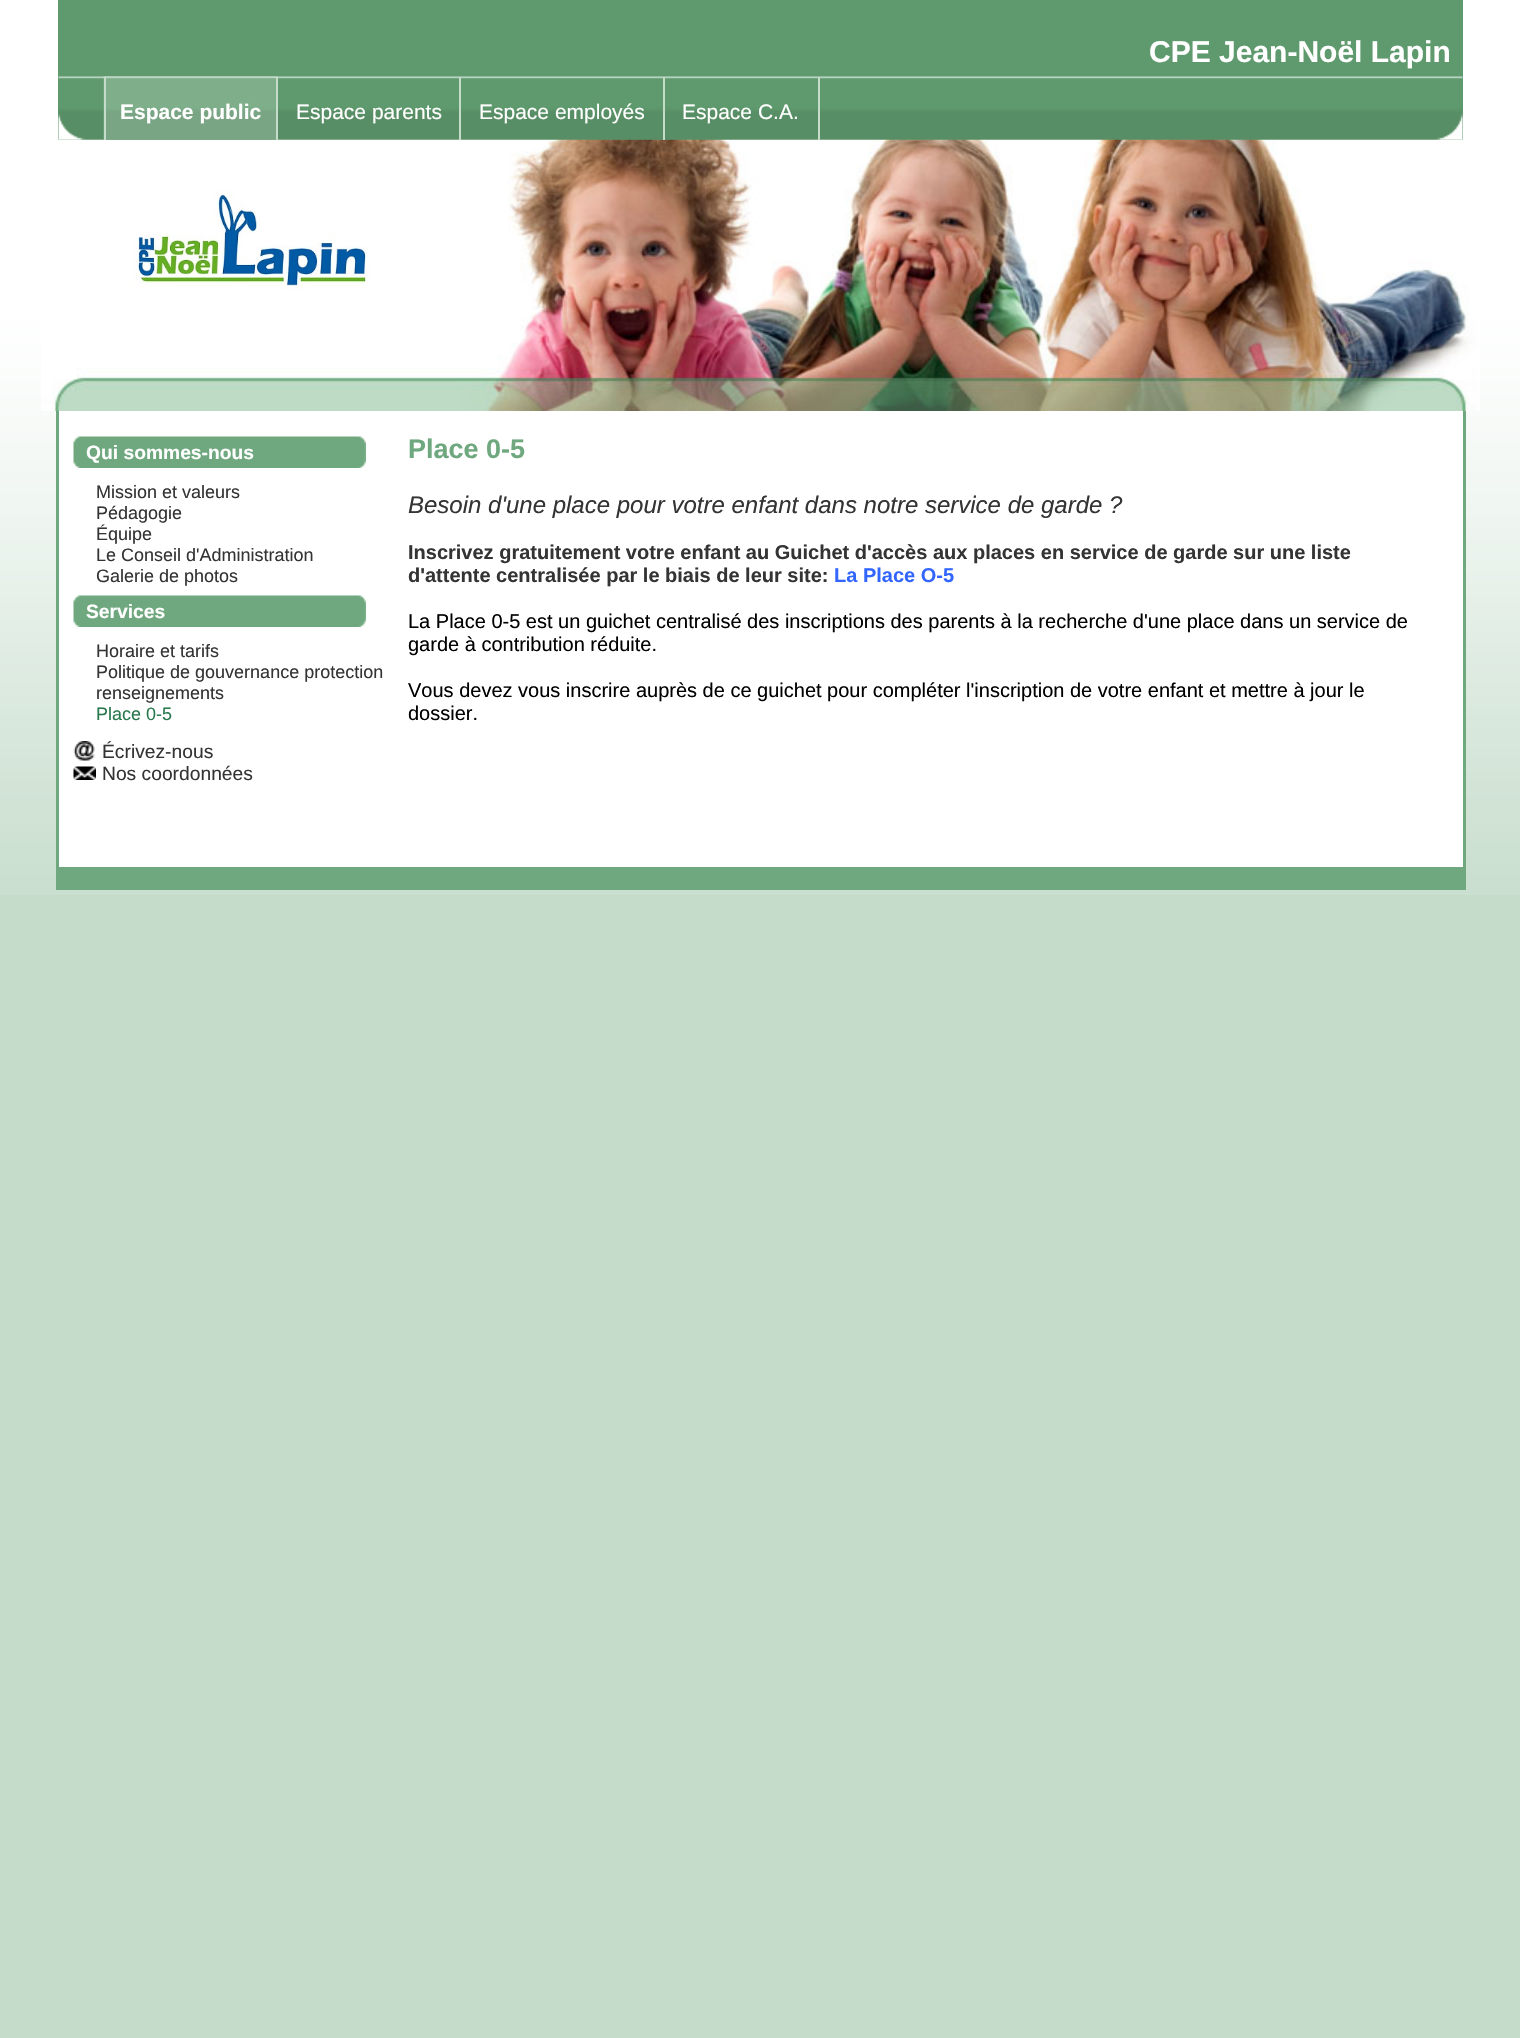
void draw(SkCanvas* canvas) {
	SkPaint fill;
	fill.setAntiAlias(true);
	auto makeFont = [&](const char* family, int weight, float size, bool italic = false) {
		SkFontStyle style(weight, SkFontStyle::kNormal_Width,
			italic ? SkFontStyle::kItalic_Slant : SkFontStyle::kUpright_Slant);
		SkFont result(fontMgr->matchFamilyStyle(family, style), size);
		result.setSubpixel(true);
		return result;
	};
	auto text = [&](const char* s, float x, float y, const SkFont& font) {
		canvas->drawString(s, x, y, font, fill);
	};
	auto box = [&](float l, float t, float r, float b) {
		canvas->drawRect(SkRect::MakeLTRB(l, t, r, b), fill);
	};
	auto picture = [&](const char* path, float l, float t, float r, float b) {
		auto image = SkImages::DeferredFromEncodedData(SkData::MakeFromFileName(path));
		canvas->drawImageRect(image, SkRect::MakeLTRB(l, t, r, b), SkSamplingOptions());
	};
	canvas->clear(0xFFC5DCCB);
	picture("image0.png", 0, 0, 1520, 895);
	fill.setColor(0xFF5E9A6D);
	box(58, 0, 1463, 140);
	picture("image2.png", 41, 139, 1480, 411);
	picture("image1.png", 132, 189, 369, 290);
	fill.setColor(0xFFFFFFFF);
	box(59, 411, 1463, 867);
	fill.setColor(0xFF6FA87E);
	box(1463, 411, 1466, 867);
	box(56, 411, 59, 867);
	picture("image3.png", 58, 76, 1463, 140);
	picture("image4.png", 103, 76, 278, 140);
	fill.setColor(0xFFC5DCCB);
	box(276, 77, 278, 140);
	box(104, 77, 106, 140);
	box(459, 77, 461, 140);
	box(663, 77, 665, 140);
	box(818, 77, 820, 140);
	picture("image5.png", 73, 436, 366, 468);
	picture("image5.png", 73, 595, 366, 627);
	picture("image6.png", 73, 741, 95, 761);
	picture("image7.png", 73, 766, 96, 780);
	fill.setColor(0xFF6FA87E);
	box(56, 867, 1466, 890);
	auto font1 = makeFont("Liberation Sans", 700, 30);
	fill.setColor(0xFFFFFFFF);
	text("CPE Jean-Noël Lapin", 1149, 62, font1);
	auto font2 = makeFont("Liberation Sans", 700, 21);
	text("Espace public", 120, 119, font2);
	auto font3 = makeFont("Liberation Sans", 400, 21);
	text("Espace parents", 296, 119, font3);
	text("Espace employés", 479, 119, font3);
	text("Espace C.A.", 682, 119, font3);
	auto font4 = makeFont("Liberation Sans", 700, 19.25f);
	text("Qui sommes-nous", 86, 459, font4);
	auto font5 = makeFont("Liberation Sans", 400, 18);
	fill.setColor(0xFF343434);
	text("Mission et valeurs", 96, 498, font5);
	text("Pédagogie", 96, 519, font5);
	text("Équipe", 96, 540, font5);
	text("Le Conseil d'Administration", 96, 561, font5);
	text("Galerie de photos", 96, 582, font5);
	fill.setColor(0xFFFFFFFF);
	text("Services", 86, 618, font4);
	fill.setColor(0xFF343434);
	text("Horaire et tarifs", 96, 657, font5);
	text("Politique de gouvernance protection", 96, 678, font5);
	text("renseignements", 96, 699, font5);
	fill.setColor(0xFF29794E);
	text("Place 0-5", 96, 720, font5);
	auto font6 = makeFont("Liberation Sans", 400, 19.25f);
	fill.setColor(0xFF343434);
	text("Écrivez-nous", 102, 758, font6);
	text("Nos coordonnées", 102, 780, font6);
	auto font7 = makeFont("Liberation Sans", 700, 27);
	fill.setColor(0xFF6FA87E);
	text("Place 0-5", 408, 458, font7);
	auto font8 = makeFont("Liberation Sans", 400, 24, true);
	fill.setColor(0xFF343434);
	text("Besoin d'une place pour votre enfant dans notre service de garde ?", 408, 513, font8);
	auto font9 = makeFont("Liberation Sans", 700, 20);
	text("Inscrivez gratuitement votre enfant au Guichet d'accès aux places en service de garde sur une liste", 408, 559, font9);
	text("d'attente centralisée par le biais de leur site:", 408, 582, font9);
	fill.setColor(0xFF3366FF);
	text("La Place O-5", 834, 582, font9);
	auto font10 = makeFont("Liberation Sans", 400, 20);
	fill.setColor(0xFF000000);
	text("La Place 0-5 est un guichet centralisé des inscriptions des parents à la recherche d'une place dans un service de", 408, 628, font10);
	text("garde à contribution réduite.", 408, 651, font10);
	text("Vous devez vous inscrire auprès de ce guichet pour compléter l'inscription de votre enfant et mettre à jour le", 408, 697, font10);
	text("dossier.", 408, 720, font10);
}
